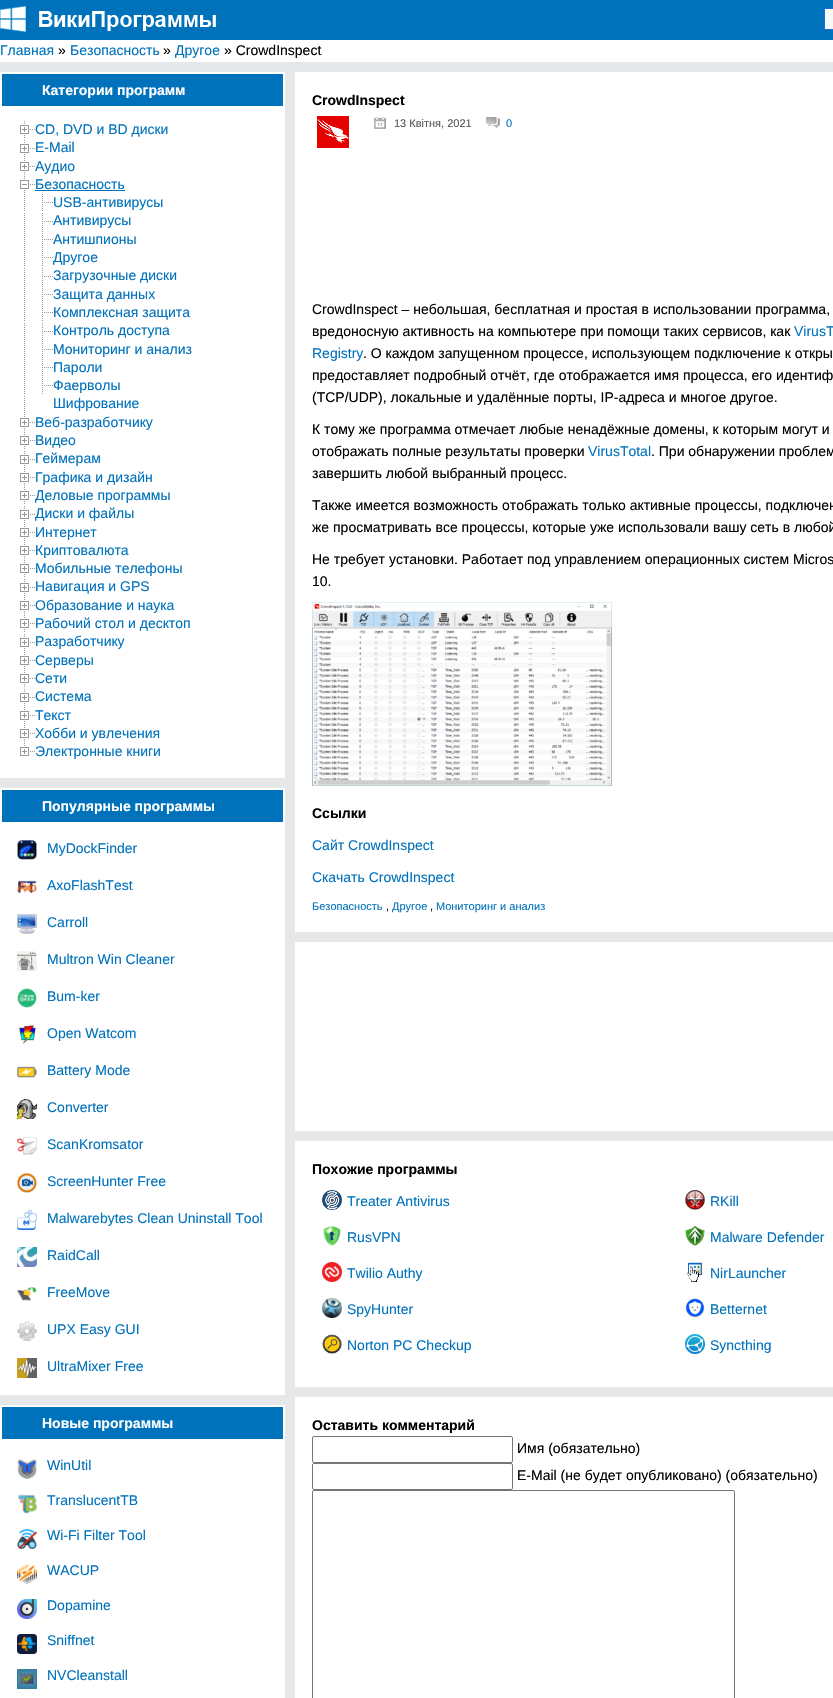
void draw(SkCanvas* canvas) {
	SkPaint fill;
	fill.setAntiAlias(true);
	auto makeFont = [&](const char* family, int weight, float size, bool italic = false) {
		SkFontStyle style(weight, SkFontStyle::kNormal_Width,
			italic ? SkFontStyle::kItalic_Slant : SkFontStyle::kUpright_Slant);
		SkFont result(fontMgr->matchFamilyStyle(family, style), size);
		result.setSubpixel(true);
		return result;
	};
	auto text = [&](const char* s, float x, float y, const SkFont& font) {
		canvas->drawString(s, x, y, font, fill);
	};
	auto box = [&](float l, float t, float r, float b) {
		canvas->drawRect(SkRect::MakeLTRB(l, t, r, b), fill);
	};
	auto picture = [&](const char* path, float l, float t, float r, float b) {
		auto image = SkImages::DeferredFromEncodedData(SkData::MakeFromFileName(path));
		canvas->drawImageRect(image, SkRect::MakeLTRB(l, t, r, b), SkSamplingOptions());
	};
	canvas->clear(0xFFE6E7E9);
	fill.setColor(0xFF0072BC);
	box(0, 0, 833, 40);
	picture("image0.png", 0, 6, 216, 32);
	fill.setColor(0xFFF7F9F9);
	canvas->drawRect(SkRect::MakeLTRB(824.5f, 8.5f, 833.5f, 29.5f), fill);
	fill.setStyle(SkPaint::kStroke_Style);
	fill.setStrokeWidth(1);
	fill.setColor(0xFF1A6CDB);
	canvas->drawRect(SkRect::MakeLTRB(824.5f, 8.5f, 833.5f, 29.5f), fill);
	fill.setStyle(SkPaint::kFill_Style);
	fill.setColor(0xFFFFFFFF);
	box(0, 40, 833, 62);
	box(0, 72, 285, 778);
	fill.setColor(0xFF0072BC);
	box(2, 74, 283, 106);
	picture("image1.png", 20, 121, 35, 138);
	picture("image1.png", 20, 140, 35, 157);
	picture("image1.png", 20, 158, 35, 175);
	picture("image2.png", 20, 176, 35, 193);
	box(35, 190, 125, 191);
	picture("image3.png", 24, 194, 25, 211);
	picture("image4.png", 42, 194, 53, 211);
	picture("image3.png", 24, 213, 25, 230);
	picture("image4.png", 42, 213, 53, 230);
	picture("image3.png", 24, 231, 25, 248);
	picture("image4.png", 42, 231, 53, 248);
	picture("image3.png", 24, 249, 25, 266);
	picture("image4.png", 42, 249, 53, 266);
	picture("image3.png", 24, 268, 25, 285);
	picture("image4.png", 42, 268, 53, 285);
	picture("image3.png", 24, 286, 25, 303);
	picture("image4.png", 42, 286, 53, 303);
	picture("image3.png", 24, 304, 25, 321);
	picture("image4.png", 42, 304, 53, 321);
	picture("image3.png", 24, 323, 25, 340);
	picture("image4.png", 42, 323, 53, 340);
	picture("image3.png", 24, 341, 25, 358);
	picture("image4.png", 42, 341, 53, 358);
	picture("image3.png", 24, 359, 25, 376);
	picture("image4.png", 42, 359, 53, 376);
	picture("image3.png", 24, 377, 25, 394);
	picture("image4.png", 42, 377, 53, 394);
	picture("image3.png", 24, 396, 25, 413);
	picture("image1.png", 20, 414, 35, 431);
	picture("image1.png", 20, 432, 35, 449);
	picture("image1.png", 20, 451, 35, 468);
	picture("image1.png", 20, 469, 35, 486);
	picture("image1.png", 20, 487, 35, 504);
	picture("image1.png", 20, 506, 35, 523);
	picture("image1.png", 20, 524, 35, 541);
	picture("image1.png", 20, 542, 35, 559);
	picture("image1.png", 20, 560, 35, 577);
	picture("image1.png", 20, 579, 35, 596);
	picture("image1.png", 20, 597, 35, 614);
	picture("image1.png", 20, 615, 35, 632);
	picture("image1.png", 20, 634, 35, 651);
	picture("image1.png", 20, 652, 35, 669);
	picture("image1.png", 20, 670, 35, 687);
	picture("image1.png", 20, 689, 35, 706);
	picture("image1.png", 20, 707, 35, 724);
	picture("image1.png", 20, 725, 35, 742);
	picture("image5.png", 20, 743, 35, 756);
	fill.setColor(0xFFFFFFFF);
	box(0, 788, 285, 1395);
	fill.setColor(0xFF0072BC);
	box(2, 790, 283, 822);
	picture("image6.png", 17, 840, 37, 860);
	picture("image7.png", 17, 880, 37, 894);
	picture("image8.png", 17, 914, 37, 934);
	picture("image9.png", 17, 951, 37, 971);
	picture("image10.png", 17, 988, 37, 1008);
	picture("image11.png", 19, 1025, 36, 1044);
	picture("image12.png", 17, 1066, 37, 1078);
	picture("image13.png", 17, 1099, 37, 1119);
	picture("image14.png", 17, 1137, 37, 1155);
	picture("image15.png", 17, 1173, 37, 1193);
	picture("image16.png", 17, 1210, 37, 1230);
	picture("image17.png", 17, 1247, 37, 1267);
	picture("image18.png", 17, 1287, 37, 1301);
	picture("image19.png", 17, 1321, 37, 1341);
	picture("image20.png", 17, 1358, 37, 1378);
	fill.setColor(0xFFFFFFFF);
	box(0, 1405, 285, 1698);
	fill.setColor(0xFF0072BC);
	box(2, 1407, 283, 1439);
	picture("image21.png", 17, 1459, 37, 1479);
	picture("image22.png", 18, 1494, 37, 1514);
	picture("image23.png", 17, 1529, 37, 1549);
	picture("image24.png", 17, 1564, 37, 1584);
	picture("image25.png", 17, 1599, 37, 1619);
	picture("image26.png", 17, 1634, 37, 1654);
	picture("image27.png", 17, 1669, 37, 1689);
	fill.setColor(0xFFFFFFFF);
	box(295, 72, 833, 932);
	picture("image28.png", 317, 116, 349, 148);
	picture("image29.png", 374, 117, 386, 129);
	picture("image30.png", 486, 117, 500, 128);
	picture("image31.png", 312, 602, 612, 786);
	box(295, 942, 833, 1131);
	box(295, 1141, 833, 1387);
	picture("image32.png", 322, 1190, 342, 1210);
	picture("image33.png", 685, 1190, 705, 1210);
	picture("image34.png", 323, 1226, 341, 1246);
	picture("image35.png", 685, 1226, 705, 1246);
	picture("image36.png", 322, 1262, 342, 1282);
	picture("image37.png", 687, 1262, 702, 1282);
	picture("image38.png", 322, 1298, 342, 1318);
	picture("image39.png", 685, 1298, 705, 1318);
	picture("image40.png", 322, 1334, 342, 1354);
	picture("image41.png", 685, 1334, 705, 1354);
	box(295, 1397, 833, 1698);
	fill.setStyle(SkPaint::kStroke_Style);
	fill.setColor(0xFF767676);
	canvas->drawRoundRect(SkRect::MakeLTRB(312.5f, 1436.5f, 512.5f, 1462.5f), 1.5f, 1.5f, fill);
	canvas->drawRoundRect(SkRect::MakeLTRB(312.5f, 1463.5f, 512.5f, 1489.5f), 1.5f, 1.5f, fill);
	canvas->drawRoundRect(SkRect::MakeLTRB(312.5f, 1490.5f, 734.5f, 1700.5f), 1.5f, 1.5f, fill);
	auto font1 = makeFont("Liberation Sans", 400, 14);
	fill.setStyle(SkPaint::kFill_Style);
	fill.setColor(0xFF0072BC);
	text("Главная", 0, 55, font1);
	fill.setColor(0xFF000000);
	text("»", 58, 55, font1);
	fill.setColor(0xFF0072BC);
	text("Безопасность", 70, 55, font1);
	fill.setColor(0xFF000000);
	text("»", 163, 55, font1);
	fill.setColor(0xFF0072BC);
	text("Другое", 175, 55, font1);
	fill.setColor(0xFF000000);
	text("» CrowdInspect", 224, 55, font1);
	auto font2 = makeFont("Liberation Sans", 700, 14);
	fill.setColor(0xFFFFFFFF);
	text("Категории программ", 42, 95, font2);
	fill.setColor(0xFF0072BC);
	text("CD, DVD и BD диски", 35, 134, font1);
	text("E-Mail", 35, 152, font1);
	text("Аудио", 35, 171, font1);
	text("Безопасность", 35, 189, font1);
	text("USB-антивирусы", 53, 207, font1);
	text("Антивирусы", 53, 225, font1);
	text("Антишпионы", 53, 244, font1);
	text("Другое", 53, 262, font1);
	text("Загрузочные диски", 53, 280, font1);
	text("Защита данных", 53, 299, font1);
	text("Комплексная защита", 53, 317, font1);
	text("Контроль доступа", 53, 335, font1);
	text("Мониторинг и анализ", 53, 354, font1);
	text("Пароли", 53, 372, font1);
	text("Фаерволы", 53, 390, font1);
	text("Шифрование", 53, 408, font1);
	text("Веб-разработчику", 35, 427, font1);
	text("Видео", 35, 445, font1);
	text("Геймерам", 35, 463, font1);
	text("Графика и дизайн", 35, 482, font1);
	text("Деловые программы", 35, 500, font1);
	text("Диски и файлы", 35, 518, font1);
	text("Интернет", 35, 537, font1);
	text("Криптовалюта", 35, 555, font1);
	text("Мобильные телефоны", 35, 573, font1);
	text("Навигация и GPS", 35, 591, font1);
	text("Образование и наука", 35, 610, font1);
	text("Рабочий стол и десктоп", 35, 628, font1);
	text("Разработчику", 35, 646, font1);
	text("Серверы", 35, 665, font1);
	text("Сети", 35, 683, font1);
	text("Система", 35, 701, font1);
	text("Текст", 35, 720, font1);
	text("Хобби и увлечения", 35, 738, font1);
	text("Электронные книги", 35, 756, font1);
	fill.setColor(0xFFFFFFFF);
	text("Популярные программы", 42, 811, font2);
	fill.setColor(0xFF0072BC);
	text("MyDockFinder", 47, 853, font1);
	text("AxoFlashTest", 47, 890, font1);
	text("Carroll", 47, 927, font1);
	text("Multron Win Cleaner", 47, 964, font1);
	text("Bum-ker", 47, 1001, font1);
	text("Open Watcom", 47, 1038, font1);
	text("Battery Mode", 47, 1075, font1);
	text("Converter", 47, 1112, font1);
	text("ScanKromsator", 47, 1149, font1);
	text("ScreenHunter Free", 47, 1186, font1);
	text("Malwarebytes Clean Uninstall Tool", 47, 1223, font1);
	text("RaidCall", 47, 1260, font1);
	text("FreeMove", 47, 1297, font1);
	text("UPX Easy GUI", 47, 1334, font1);
	text("UltraMixer Free", 47, 1371, font1);
	fill.setColor(0xFFFFFFFF);
	text("Новые программы", 42, 1428, font2);
	fill.setColor(0xFF0072BC);
	text("WinUtil", 47, 1470, font1);
	text("TranslucentTB", 47, 1505, font1);
	text("Wi-Fi Filter Tool", 47, 1540, font1);
	text("WACUP", 47, 1575, font1);
	text("Dopamine", 47, 1610, font1);
	text("Sniffnet", 47, 1645, font1);
	text("NVCleanstall", 47, 1680, font1);
	fill.setColor(0xFF000000);
	text("CrowdInspect", 312, 105, font2);
	auto font3 = makeFont("Liberation Sans", 400, 11);
	fill.setColor(0xFF555555);
	text("13 Квітня, 2021", 394, 127, font3);
	fill.setColor(0xFF0072BC);
	text("0", 506, 127, font3);
	fill.setColor(0xFF000000);
	text("CrowdInspect – небольшая, бесплатная и простая в использовании программа,", 312, 314, font1);
	text("вредоносную активность на компьютере при помощи таких сервисов, как", 312, 336, font1);
	fill.setColor(0xFF0072BC);
	text("VirusT", 794, 336, font1);
	text("Registry", 312, 358, font1);
	fill.setColor(0xFF000000);
	text(". О каждом запущенном процессе, использующем подключение к откры", 363, 358, font1);
	text("предоставляет подробный отчёт, где отображается имя процесса, его идентиф", 312, 380, font1);
	text("(TCP/UDP), локальные и удалённые порты, IP-адреса и многое другое.", 312, 402, font1);
	text("К тому же программа отмечает любые ненадёжные домены, к которым могут и", 312, 434, font1);
	text("отображать полные результаты проверки", 312, 456, font1);
	fill.setColor(0xFF0072BC);
	text("VirusTotal", 588, 456, font1);
	fill.setColor(0xFF000000);
	text(". При обнаружении проблем", 651, 456, font1);
	text("завершить любой выбранный процесс.", 312, 478, font1);
	text("Также имеется возможность отображать только активные процессы, подключен", 312, 510, font1);
	text("же просматривать все процессы, которые уже использовали вашу сеть в любой", 312, 532, font1);
	text("Не требует установки. Работает под управлением операционных систем Micros", 312, 564, font1);
	text("10.", 312, 586, font1);
	text("Ссылки", 312, 818, font2);
	fill.setColor(0xFF0072BC);
	text("Сайт CrowdInspect", 312, 850, font1);
	text("Скачать CrowdInspect", 312, 882, font1);
	text("Безопасность", 312, 910, font3);
	fill.setColor(0xFF000000);
	text(",", 386, 910, font3);
	fill.setColor(0xFF0072BC);
	text("Другое", 392, 910, font3);
	fill.setColor(0xFF000000);
	text(",", 430, 910, font3);
	fill.setColor(0xFF0072BC);
	text("Мониторинг и анализ", 436, 910, font3);
	fill.setColor(0xFF000000);
	text("Похожие программы", 312, 1174, font2);
	fill.setColor(0xFF0072BC);
	text("Treater Antivirus", 347, 1206, font1);
	text("RKill", 710, 1206, font1);
	text("RusVPN", 347, 1242, font1);
	text("Malware Defender", 710, 1242, font1);
	text("Twilio Authy", 347, 1278, font1);
	text("NirLauncher", 710, 1278, font1);
	text("SpyHunter", 347, 1314, font1);
	text("Betternet", 710, 1314, font1);
	text("Norton PC Checkup", 347, 1350, font1);
	text("Syncthing", 710, 1350, font1);
	fill.setColor(0xFF000000);
	text("Оставить комментарий", 312, 1430, font2);
	text("Имя (обязательно)", 517, 1453, font1);
	text("E-Mail (не будет опубликовано) (обязательно)", 517, 1480, font1);
}
